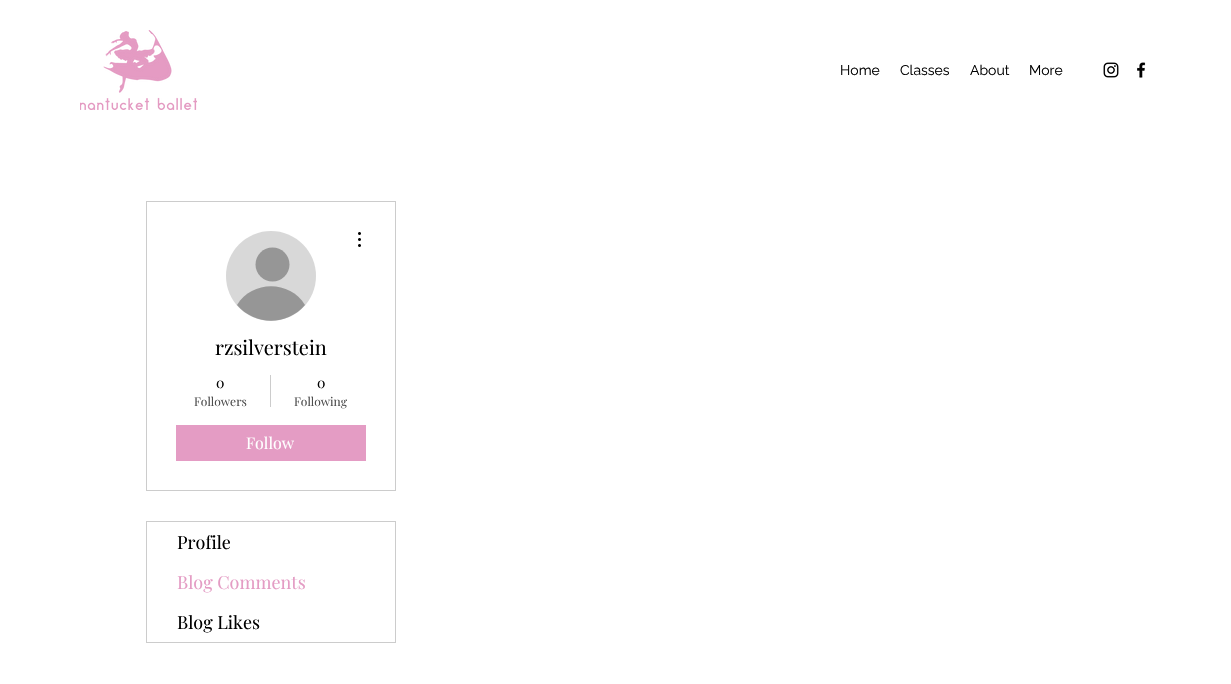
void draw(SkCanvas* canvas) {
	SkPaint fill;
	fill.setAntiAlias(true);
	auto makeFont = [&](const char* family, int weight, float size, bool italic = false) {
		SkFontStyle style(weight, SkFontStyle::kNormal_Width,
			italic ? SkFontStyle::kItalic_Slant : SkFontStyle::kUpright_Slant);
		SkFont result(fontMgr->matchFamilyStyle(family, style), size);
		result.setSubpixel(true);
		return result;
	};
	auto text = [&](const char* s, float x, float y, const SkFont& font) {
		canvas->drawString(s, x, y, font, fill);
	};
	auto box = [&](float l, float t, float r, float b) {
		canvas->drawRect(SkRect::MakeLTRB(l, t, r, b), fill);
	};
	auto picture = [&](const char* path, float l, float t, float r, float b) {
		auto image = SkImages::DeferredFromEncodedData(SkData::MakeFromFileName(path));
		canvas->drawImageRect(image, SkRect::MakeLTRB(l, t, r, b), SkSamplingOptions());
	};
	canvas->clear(0xFFFFFFFF);
	picture("image0.png", 80, 30, 197, 110);
	picture("image1.png", 1103, 62, 1119, 78);
	picture("image2.png", 1137, 62, 1146, 78);
	fill.setStyle(SkPaint::kStroke_Style);
	fill.setStrokeWidth(1);
	fill.setColor(0xFFCCCCCC);
	canvas->drawRect(SkRect::MakeLTRB(146.5f, 201.5f, 395.5f, 490.5f), fill);
	fill.setStyle(SkPaint::kFill_Style);
	fill.setColor(0xFFD8D8D8);
	canvas->drawCircle(271, 276, 45, fill);
	fill.setColor(0xFF969696);
	canvas->drawCircle(272.5f, 264.5f, 17, fill);
	canvas->drawPath(SkPathBuilder().moveTo(305, 305).cubicTo(287, 326, 255, 326, 237, 305).cubicTo(252, 280, 290, 280, 305, 305).close().detach(), fill);
	picture("image3.png", 358, 232, 361, 247);
	fill.setColor(0xFFCCCCCC);
	box(270, 375, 271, 407);
	fill.setColor(0xFFE49CC4);
	box(176, 425, 366, 461);
	fill.setStyle(SkPaint::kStroke_Style);
	fill.setColor(0xFFCCCCCC);
	canvas->drawRect(SkRect::MakeLTRB(146.5f, 521.5f, 395.5f, 642.5f), fill);
	auto font1 = makeFont("Raleway", 400, 14);
	fill.setStyle(SkPaint::kFill_Style);
	fill.setColor(0xFF000000);
	text("Home", 840, 75, font1);
	text("Classes", 900, 75, font1);
	text("About", 970, 75, font1);
	text("More", 1029, 75, font1);
	auto font2 = makeFont("Playfair Display", 400, 20);
	text("rzsilverstein", 215, 355, font2);
	auto font3 = makeFont("Playfair Display", 400, 14);
	text("0", 216, 388, font3);
	auto font4 = makeFont("Playfair Display", 400, 12);
	fill.setColor(0xFF4D4D4D);
	text("Followers", 194, 406, font4);
	fill.setColor(0xFF000000);
	text("0", 317, 388, font3);
	fill.setColor(0xFF4D4D4D);
	text("Following", 294, 406, font4);
	auto font5 = makeFont("Playfair Display", 400, 16);
	fill.setColor(0xFFFFFFFF);
	text("Follow", 246, 449, font5);
	auto font6 = makeFont("Playfair Display", 400, 18);
	fill.setColor(0xFF000000);
	text("Profile", 177, 549, font6);
	fill.setColor(0xFFE49CC4);
	text("Blog Comments", 177, 589, font6);
	fill.setColor(0xFF000000);
	text("Blog Likes", 177, 629, font6);
}
